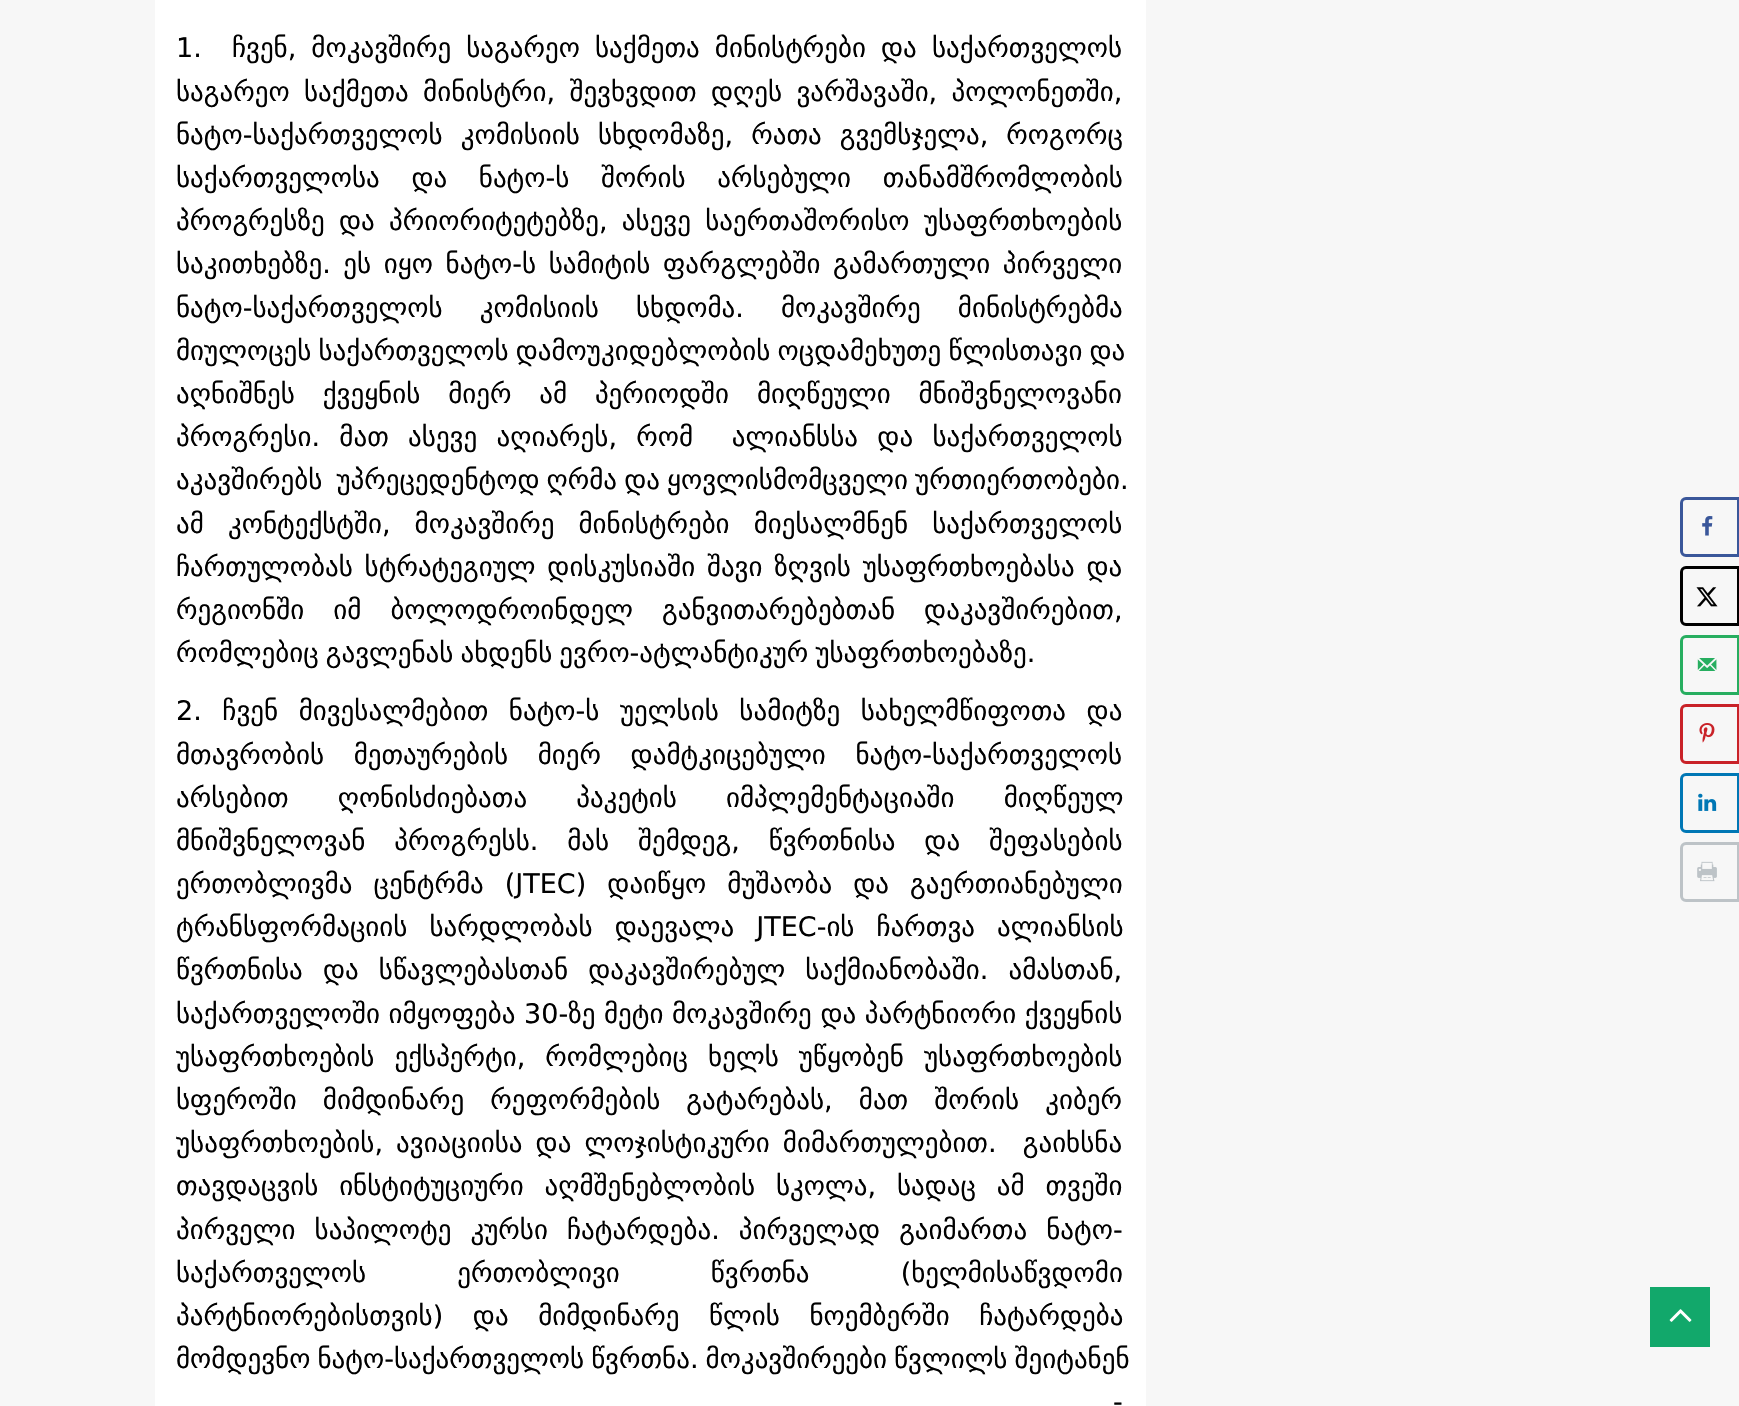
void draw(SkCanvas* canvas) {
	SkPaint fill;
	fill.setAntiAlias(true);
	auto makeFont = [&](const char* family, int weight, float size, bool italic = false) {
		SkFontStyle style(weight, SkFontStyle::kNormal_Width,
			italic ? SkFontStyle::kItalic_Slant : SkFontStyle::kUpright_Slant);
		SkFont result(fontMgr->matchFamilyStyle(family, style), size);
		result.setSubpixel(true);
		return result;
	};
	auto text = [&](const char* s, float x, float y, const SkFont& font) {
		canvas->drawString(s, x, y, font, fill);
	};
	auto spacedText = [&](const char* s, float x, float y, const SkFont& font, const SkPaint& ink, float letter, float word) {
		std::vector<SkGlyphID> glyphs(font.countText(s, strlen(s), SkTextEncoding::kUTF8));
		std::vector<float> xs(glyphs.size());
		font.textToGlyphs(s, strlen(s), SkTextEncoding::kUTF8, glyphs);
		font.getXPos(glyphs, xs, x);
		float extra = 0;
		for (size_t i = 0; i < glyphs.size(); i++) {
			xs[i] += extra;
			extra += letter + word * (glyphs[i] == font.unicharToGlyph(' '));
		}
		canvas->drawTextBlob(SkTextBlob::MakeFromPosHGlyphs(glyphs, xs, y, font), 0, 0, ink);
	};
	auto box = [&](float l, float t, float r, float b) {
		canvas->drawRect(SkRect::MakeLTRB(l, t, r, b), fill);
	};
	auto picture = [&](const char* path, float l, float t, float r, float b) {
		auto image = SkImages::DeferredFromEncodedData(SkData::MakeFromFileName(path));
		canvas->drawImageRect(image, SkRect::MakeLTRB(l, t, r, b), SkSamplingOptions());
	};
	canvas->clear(0xFFF7F7F7);
	fill.setColor(0xFFFFFFFF);
	box(155, 0, 1146, 1406);
	fill.setStyle(SkPaint::kStroke_Style);
	fill.setStrokeWidth(3);
	fill.setColor(0xFF3A579A);
	canvas->drawPath(SkPathBuilder().moveTo(1686, 498.5f).lineTo(1738.5f, 498.5f).lineTo(1738.5f, 555.5f).lineTo(1686, 555.5f).cubicTo(1683.5f, 555.5f, 1681.5f, 553.5f, 1681.5f, 551).lineTo(1681.5f, 503).cubicTo(1681.5f, 500.5f, 1683.5f, 498.5f, 1686, 498.5f).close().detach(), fill);
	picture("image0.png", 1702, 516, 1713, 536);
	fill.setColor(0xFF000000);
	canvas->drawPath(SkPathBuilder().moveTo(1686, 567.5f).lineTo(1738.5f, 567.5f).lineTo(1738.5f, 624.5f).lineTo(1686, 624.5f).cubicTo(1683.5f, 624.5f, 1681.5f, 622.5f, 1681.5f, 620).lineTo(1681.5f, 572).cubicTo(1681.5f, 569.5f, 1683.5f, 567.5f, 1686, 567.5f).close().detach(), fill);
	picture("image1.png", 1696, 587, 1718, 607);
	fill.setColor(0xFF27AE60);
	canvas->drawPath(SkPathBuilder().moveTo(1686, 636.5f).lineTo(1738.5f, 636.5f).lineTo(1738.5f, 693.5f).lineTo(1686, 693.5f).cubicTo(1683.5f, 693.5f, 1681.5f, 691.5f, 1681.5f, 689).lineTo(1681.5f, 641).cubicTo(1681.5f, 638.5f, 1683.5f, 636.5f, 1686, 636.5f).close().detach(), fill);
	picture("image2.png", 1697, 658, 1717, 671);
	fill.setColor(0xFFC92228);
	canvas->drawPath(SkPathBuilder().moveTo(1686, 705.5f).lineTo(1738.5f, 705.5f).lineTo(1738.5f, 762.5f).lineTo(1686, 762.5f).cubicTo(1683.5f, 762.5f, 1681.5f, 760.5f, 1681.5f, 758).lineTo(1681.5f, 710).cubicTo(1681.5f, 707.5f, 1683.5f, 705.5f, 1686, 705.5f).close().detach(), fill);
	picture("image3.png", 1699, 723, 1715, 743);
	fill.setColor(0xFF0077B5);
	canvas->drawPath(SkPathBuilder().moveTo(1686, 774.5f).lineTo(1738.5f, 774.5f).lineTo(1738.5f, 831.5f).lineTo(1686, 831.5f).cubicTo(1683.5f, 831.5f, 1681.5f, 829.5f, 1681.5f, 827).lineTo(1681.5f, 779).cubicTo(1681.5f, 776.5f, 1683.5f, 774.5f, 1686, 774.5f).close().detach(), fill);
	picture("image4.png", 1698, 793, 1717, 811);
	fill.setColor(0xFFBDC3C7);
	canvas->drawPath(SkPathBuilder().moveTo(1686, 843.5f).lineTo(1738.5f, 843.5f).lineTo(1738.5f, 900.5f).lineTo(1686, 900.5f).cubicTo(1683.5f, 900.5f, 1681.5f, 898.5f, 1681.5f, 896).lineTo(1681.5f, 848).cubicTo(1681.5f, 845.5f, 1683.5f, 843.5f, 1686, 843.5f).close().detach(), fill);
	picture("image5.png", 1697, 861, 1717, 882);
	fill.setStyle(SkPaint::kFill_Style);
	fill.setColor(0xFF12A86B);
	box(1650, 1287, 1710, 1347);
	picture("image6.png", 1669, 1309, 1692, 1322);
	auto font1 = makeFont("DejaVu Sans", 400, 27);
	fill.setColor(0xFF000000);
	spacedText("1.  ჩვენ, მოკავშირე საგარეო საქმეთა მინისტრები და საქართველოს", 176, 57, font1, fill, 0, 6.5f);
	spacedText("საგარეო საქმეთა მინისტრი, შევხვდით დღეს ვარშავაში, პოლონეთში,", 176, 101, font1, fill, 0, 5.75f);
	spacedText("ნატო-საქართველოს კომისიის სხდომაზე, რათა გვემსჯელა, როგორც", 176, 144, font1, fill, 0, 9.5f);
	spacedText("საქართველოსა და ნატო-ს შორის არსებული თანამშრომლობის", 176, 187, font1, fill, 0, 23);
	spacedText("პროგრესზე და პრიორიტეტებზე, ასევე საერთაშორისო უსაფრთხოების", 176, 230, font1, fill, 0, 5.75f);
	spacedText("საკითხებზე. ეს იყო ნატო-ს სამიტის ფარგლებში გამართული პირველი", 176, 273, font1, fill, 0, 4);
	spacedText("ნატო-საქართველოს კომისიის სხდომა. მოკავშირე მინისტრებმა", 176, 317, font1, fill, 0, 28.5f);
	spacedText("მიულოცეს საქართველოს დამოუკიდებლობის ოცდამეხუთე წლისთავი და", 176, 360, font1, fill, 0, -1.5f);
	spacedText("აღნიშნეს ქვეყნის მიერ ამ პერიოდში მიღწეული მნიშვნელოვანი", 176, 403, font1, fill, 0, 19.25f);
	spacedText("პროგრესი. მათ ასევე აღიარეს, რომ  ალიანსსა და საქართველოს", 176, 446, font1, fill, 0, 10.75f);
	spacedText("აკავშირებს  უპრეცედენტოდ ღრმა და ყოვლისმომცველი ურთიერთობები.", 176, 489, font1, fill, 0, -1.5f);
	spacedText("ამ კონტექსტში, მოკავშირე მინისტრები მიესალმნენ საქართველოს", 176, 533, font1, fill, 0, 15.5f);
	spacedText("ჩართულობას სტრატეგიულ დისკუსიაში შავი ზღვის უსაფრთხოებასა და", 176, 576, font1, fill, 0, 3.25f);
	spacedText("რეგიონში იმ ბოლოდროინდელ განვითარებებთან დაკავშირებით,", 176, 619, font1, fill, 0, 20.5f);
	spacedText("რომლებიც გავლენას ახდენს ევრო-ატლანტიკურ უსაფრთხოებაზე.", 176, 662, font1, fill, 0, -1.5f);
	spacedText("2. ჩვენ მივესალმებით ნატო-ს უელსის სამიტზე სახელმწიფოთა და", 176, 720, font1, fill, 0, 12);
	spacedText("მთავრობის მეთაურების მიერ დამტკიცებული ნატო-საქართველოს", 176, 764, font1, fill, 0, 21);
	spacedText("არსებით ღონისძიებათა პაკეტის იმპლემენტაციაში მიღწეულ", 176, 807, font1, fill, 0, 40.5f);
	spacedText("მნიშვნელოვან პროგრესს. მას შემდეგ, წვრთნისა და შეფასების", 176, 850, font1, fill, 0, 20.25f);
	spacedText("ერთობლივმა ცენტრმა (JTEC) დაიწყო მუშაობა და გაერთიანებული", 176, 893, font1, fill, 0, 12.5f);
	spacedText("ტრანსფორმაციის სარდლობას დაევალა JTEC-ის ჩართვა ალიანსის", 176, 936, font1, fill, 0, 13.5f);
	spacedText("წვრთნისა და სწავლებასთან დაკავშირებულ საქმიანობაში. ამასთან,", 176, 979, font1, fill, 0, 11.5f);
	text("საქართველოში იმყოფება 30-ზე მეტი მოკავშირე და პარტნიორი ქვეყნის", 176, 1023, font1);
	spacedText("უსაფრთხოების ექსპერტი, რომლებიც ხელს უწყობენ უსაფრთხოების", 176, 1066, font1, fill, 0, 11.5f);
	spacedText("სფეროში მიმდინარე რეფორმების გატარებას, მათ შორის კიბერ", 176, 1109, font1, fill, 0, 17.5f);
	spacedText("უსაფრთხოების, ავიაციისა და ლოჯისტიკური მიმართულებით.  გაიხსნა", 176, 1152, font1, fill, 0, 4.5f);
	spacedText("თავდაცვის ინსტიტუციური აღმშენებლობის სკოლა, სადაც ამ თვეში", 176, 1195, font1, fill, 0, 12.25f);
	spacedText("პირველი საპილოტე კურსი ჩატარდება. პირველად გაიმართა ნატო-", 176, 1239, font1, fill, 0, 10.5f);
	spacedText("საქართველოს ერთობლივი წვრთნა (ხელმისაწვდომი", 176, 1282, font1, fill, 0, 82.5f);
	spacedText("პარტნიორებისთვის) და მიმდინარე წლის ნოემბერში ჩატარდება", 176, 1325, font1, fill, 0, 21);
	spacedText("მომდევნო ნატო-საქართველოს წვრთნა. მოკავშირეები წვლილს შეიტანენ", 176, 1368, font1, fill, 0, -1.5f);
	spacedText("-", 1113, 1411, font1, fill, 0, 4);
}
